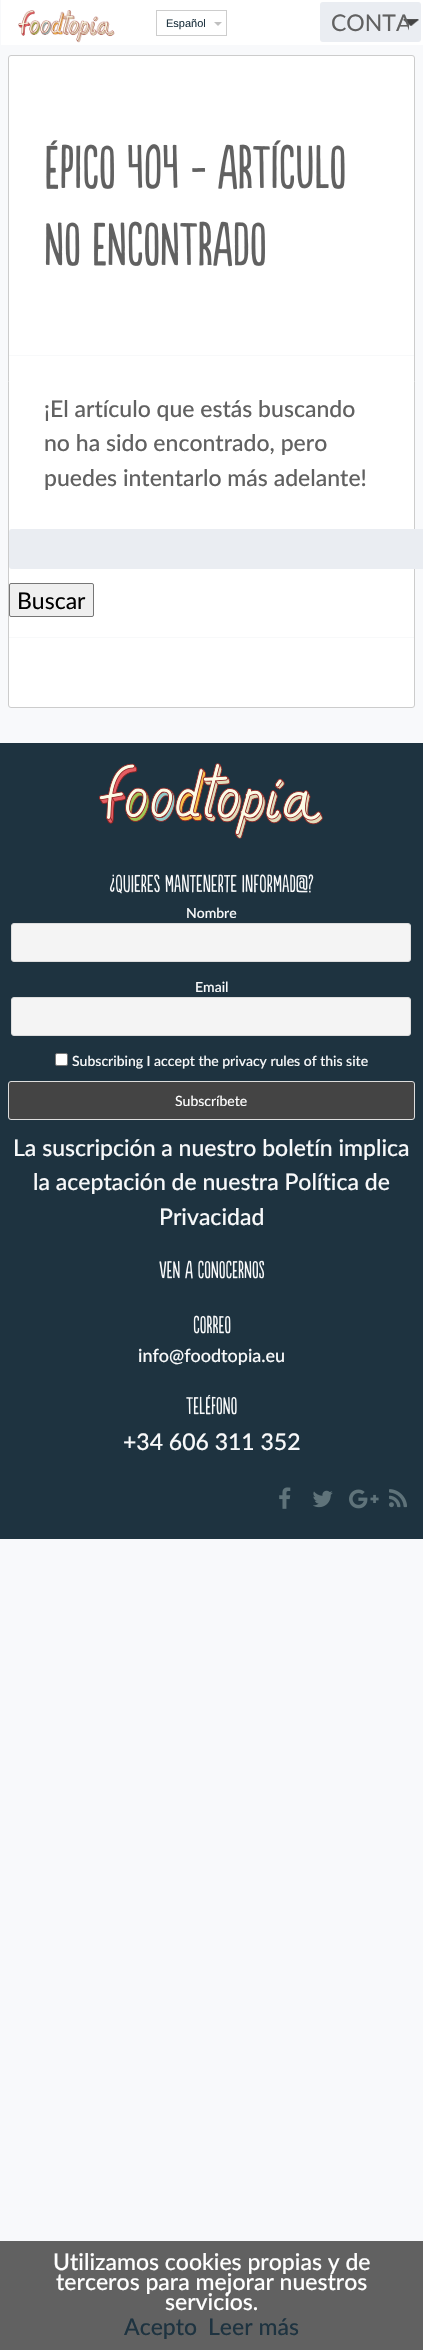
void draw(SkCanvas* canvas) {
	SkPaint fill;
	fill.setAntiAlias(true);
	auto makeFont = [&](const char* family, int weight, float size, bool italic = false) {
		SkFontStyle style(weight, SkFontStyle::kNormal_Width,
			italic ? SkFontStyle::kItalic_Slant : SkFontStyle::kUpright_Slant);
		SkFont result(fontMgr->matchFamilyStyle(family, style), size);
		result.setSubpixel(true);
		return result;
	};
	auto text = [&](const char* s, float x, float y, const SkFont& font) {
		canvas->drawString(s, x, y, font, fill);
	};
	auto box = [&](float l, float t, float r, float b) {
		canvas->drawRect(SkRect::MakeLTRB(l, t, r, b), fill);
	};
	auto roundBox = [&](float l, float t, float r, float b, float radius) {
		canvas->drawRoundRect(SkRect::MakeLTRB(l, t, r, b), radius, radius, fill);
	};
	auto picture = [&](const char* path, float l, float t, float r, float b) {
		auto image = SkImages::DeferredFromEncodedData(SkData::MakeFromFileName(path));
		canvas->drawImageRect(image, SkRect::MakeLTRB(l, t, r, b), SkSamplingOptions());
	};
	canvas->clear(0xFFF8F9FB);
	fill.setColor(0xFFFFFFFF);
	box(1, 0, 423, 45);
	picture("image0.png", 18, 10, 115, 43);
	picture("image1.png", 214, 22, 222, 26);
	fill.setStyle(SkPaint::kStroke_Style);
	fill.setStrokeWidth(1);
	fill.setColor(0xFFCDCDCD);
	canvas->drawRect(SkRect::MakeLTRB(156.5f, 10.5f, 226.5f, 35.5f), fill);
	fill.setStyle(SkPaint::kFill_Style);
	fill.setColor(0xFFEAEDF2);
	roundBox(320, 2, 421, 42, 3);
	picture("image2.png", 403, 19, 419, 26);
	fill.setColor(0xFFFFFFFF);
	canvas->drawRoundRect(SkRect::MakeLTRB(8.5f, 55.5f, 414.5f, 707.5f), 2.5f, 2.5f, fill);
	fill.setStyle(SkPaint::kStroke_Style);
	fill.setColor(0xFFCCCCCC);
	canvas->drawRoundRect(SkRect::MakeLTRB(8.5f, 55.5f, 414.5f, 707.5f), 2.5f, 2.5f, fill);
	fill.setStyle(SkPaint::kFill_Style);
	fill.setColor(0xFFF8F9FA);
	box(9, 355, 414, 356);
	picture("image3.png", 46, 140, 345, 190);
	picture("image4.png", 45, 221, 265, 267);
	fill.setColor(0xFFEAEDF2);
	roundBox(9, 529, 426, 569, 3);
	fill.setColor(0xFFEFEFEF);
	canvas->drawRoundRect(SkRect::MakeLTRB(9.5f, 583.5f, 93.5f, 616.5f), 1.5f, 1.5f, fill);
	fill.setStyle(SkPaint::kStroke_Style);
	fill.setColor(0xFF767676);
	canvas->drawRoundRect(SkRect::MakeLTRB(9.5f, 583.5f, 93.5f, 616.5f), 1.5f, 1.5f, fill);
	fill.setStyle(SkPaint::kFill_Style);
	fill.setColor(0xFFF8F9FA);
	box(9, 637, 414, 638);
	fill.setColor(0xFF1E3340);
	box(0, 743, 423, 1539);
	picture("image5.png", 99, 763, 323, 839);
	picture("image6.png", 109, 874, 314, 894);
	fill.setColor(0xFFF4F4F4);
	canvas->drawRoundRect(SkRect::MakeLTRB(11.5f, 923.5f, 410.5f, 961.5f), 2.5f, 2.5f, fill);
	fill.setStyle(SkPaint::kStroke_Style);
	fill.setColor(0xFFDDDDDD);
	canvas->drawRoundRect(SkRect::MakeLTRB(11.5f, 923.5f, 410.5f, 961.5f), 2.5f, 2.5f, fill);
	fill.setStyle(SkPaint::kFill_Style);
	fill.setColor(0xFFF4F4F4);
	canvas->drawRoundRect(SkRect::MakeLTRB(11.5f, 997.5f, 410.5f, 1035.5f), 2.5f, 2.5f, fill);
	fill.setStyle(SkPaint::kStroke_Style);
	fill.setColor(0xFFDDDDDD);
	canvas->drawRoundRect(SkRect::MakeLTRB(11.5f, 997.5f, 410.5f, 1035.5f), 2.5f, 2.5f, fill);
	fill.setStyle(SkPaint::kFill_Style);
	fill.setColor(0xFFFFFFFF);
	canvas->drawRoundRect(SkRect::MakeLTRB(55.5f, 1053.5f, 67.5f, 1065.5f), 1.5f, 1.5f, fill);
	fill.setStyle(SkPaint::kStroke_Style);
	fill.setColor(0xFF767676);
	canvas->drawRoundRect(SkRect::MakeLTRB(55.5f, 1053.5f, 67.5f, 1065.5f), 1.5f, 1.5f, fill);
	fill.setStyle(SkPaint::kFill_Style);
	fill.setColor(0xFF444444);
	canvas->drawRoundRect(SkRect::MakeLTRB(8.5f, 1081.5f, 414.5f, 1119.5f), 2.5f, 2.5f, fill);
	fill.setStyle(SkPaint::kStroke_Style);
	fill.setColor(0xFFDDDDDD);
	canvas->drawRoundRect(SkRect::MakeLTRB(8.5f, 1081.5f, 414.5f, 1119.5f), 2.5f, 2.5f, fill);
	picture("image7.png", 159, 1260, 265, 1279);
	picture("image8.png", 193, 1315, 231, 1334);
	picture("image9.png", 186, 1394, 237, 1415);
	picture("image10.png", 279, 1487, 291, 1509);
	picture("image11.png", 313, 1490, 333, 1508);
	picture("image12.png", 349, 1489, 379, 1509);
	picture("image13.png", 389, 1489, 407, 1508);
	fill.setStyle(SkPaint::kFill_Style);
	fill.setColor(0xFF616161);
	box(0, 2241, 423, 2350);
	auto font1 = makeFont("Liberation Sans", 400, 11);
	fill.setColor(0xFF1E3340);
	text("Español", 166, 27, font1);
	canvas->save();
	canvas->clipRect(SkRect::MakeLTRB(332, 11, 409, 34));
	auto font2 = makeFont("Lato", 400, 23);
	fill.setColor(0xFF616161);
	text("CONTA", 331, 31, font2);
	canvas->restore();
	auto font3 = makeFont("Lato", 500, 23);
	text("¡El artículo que estás buscando", 44, 417, font3);
	text("no ha sido encontrado, pero", 44, 451, font3);
	text("puedes intentarlo más adelante!", 44, 486, font3);
	fill.setColor(0xFF000000);
	text("Buscar", 17, 609, font2);
	auto font4 = makeFont("Lato", 500, 14);
	fill.setColor(0xFFF8F9FA);
	text("Nombre", 186, 918, font4);
	text("Email", 195, 992, font4);
	text("Subscribing I accept the privacy rules of this site", 72, 1066, font4);
	auto font5 = makeFont("Lato", 400, 14);
	fill.setColor(0xFFFFFFFF);
	text("Subscríbete", 175, 1106, font5);
	fill.setColor(0xFFF8F9FA);
	text("La suscripción a nuestro boletín implica", 13, 1156, font3);
	text("la aceptación de nuestra Política de", 33, 1190, font3);
	text("Privacidad", 159, 1225, font3);
	auto font6 = makeFont("Lato", 500, 18);
	text("info@foodtopia.eu", 138, 1362, font6);
	text("+34 606 311 352", 123, 1450, font3);
	fill.setColor(0xFFFFFFFF);
	text("Utilizamos cookies propias y de", 53, 2270, font3);
	text("terceros para mejorar nuestros", 56, 2290, font3);
	text("servicios.", 165, 2310, font3);
	fill.setColor(0xFF1E3340);
	text("Acepto", 124, 2335, font3);
	text("Leer más", 208, 2335, font3);
}
